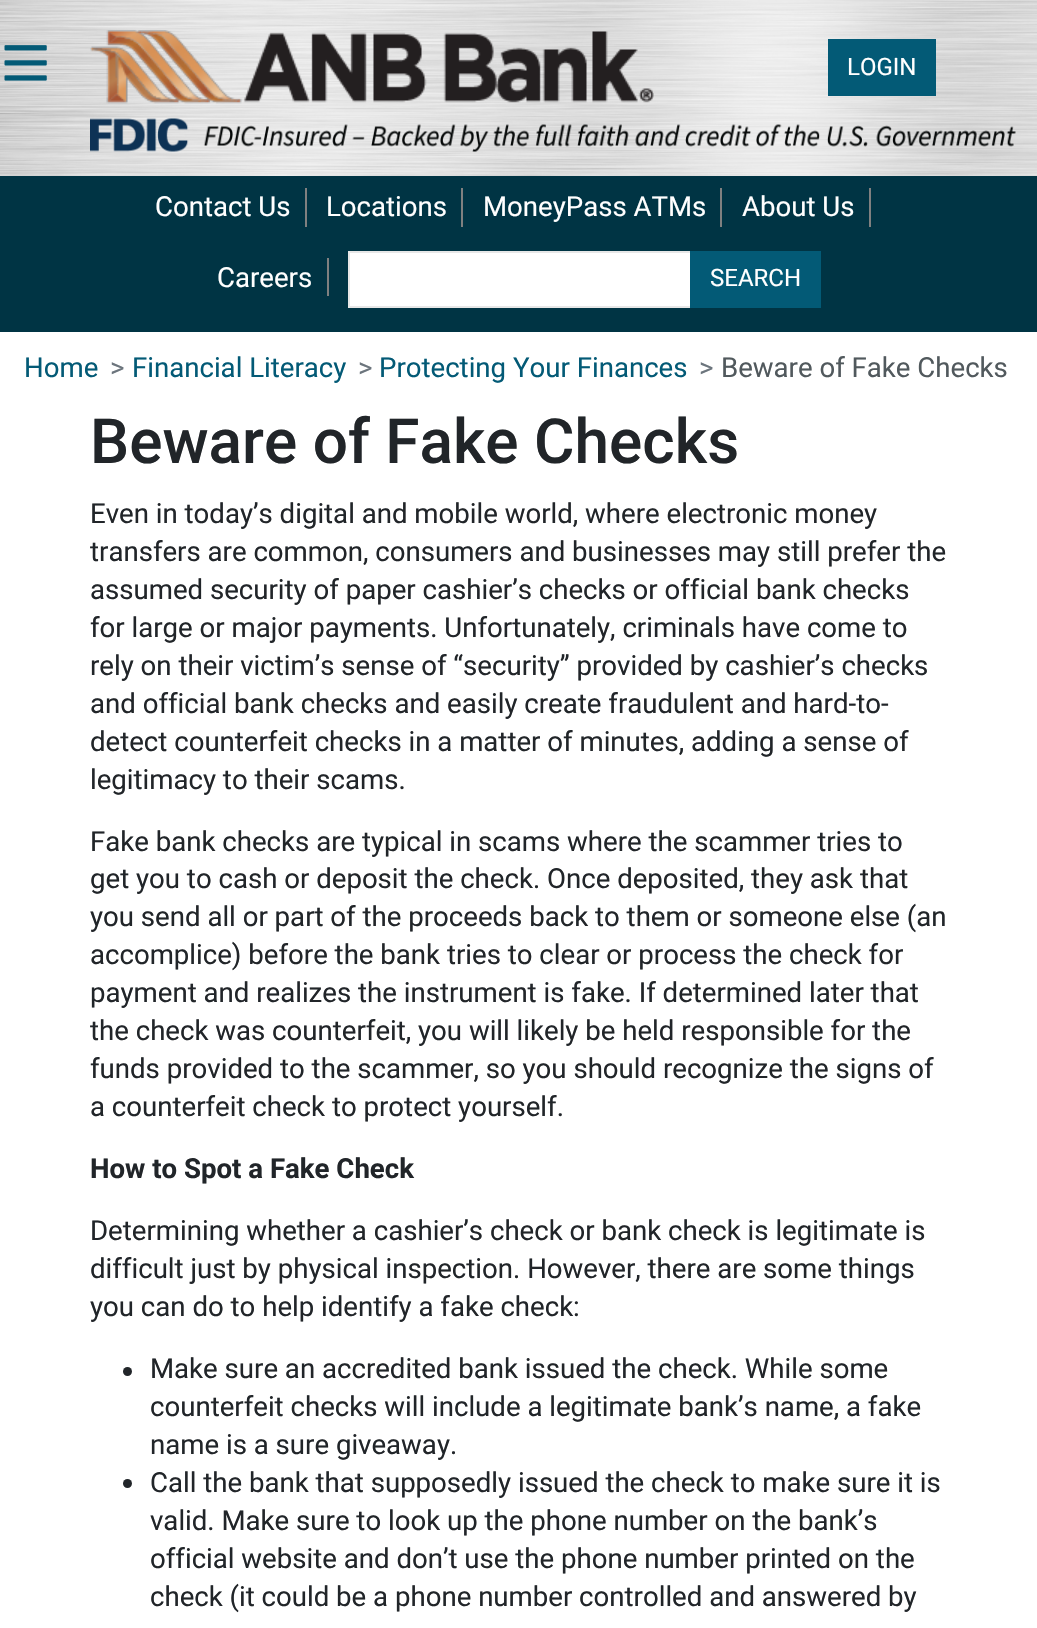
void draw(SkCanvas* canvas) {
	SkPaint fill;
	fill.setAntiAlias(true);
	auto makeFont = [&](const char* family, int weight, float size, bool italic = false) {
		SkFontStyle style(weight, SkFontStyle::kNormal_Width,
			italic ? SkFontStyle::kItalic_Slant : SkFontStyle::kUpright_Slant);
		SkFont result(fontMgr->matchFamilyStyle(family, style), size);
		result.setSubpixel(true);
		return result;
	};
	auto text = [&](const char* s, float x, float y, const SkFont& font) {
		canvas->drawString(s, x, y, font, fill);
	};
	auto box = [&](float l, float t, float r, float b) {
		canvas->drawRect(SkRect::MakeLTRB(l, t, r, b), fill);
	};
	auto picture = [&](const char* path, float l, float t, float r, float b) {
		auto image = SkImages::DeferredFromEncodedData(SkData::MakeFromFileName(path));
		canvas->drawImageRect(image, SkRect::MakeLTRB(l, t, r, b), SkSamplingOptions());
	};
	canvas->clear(0xFFFFFFFF);
	picture("image0.png", 0, 0, 1037, 176);
	picture("image1.png", 4, 45, 47, 81);
	picture("image2.png", 90, 30, 654, 104);
	fill.setColor(0xFF035A76);
	box(828, 39, 936, 96);
	picture("image3.png", 90, 118, 1016, 152);
	fill.setColor(0xFF003444);
	box(0, 176, 1037, 332);
	fill.setColor(0xFF808080);
	box(305, 188, 307, 227);
	box(461, 188, 463, 227);
	box(720, 188, 722, 227);
	box(869, 188, 871, 227);
	box(327, 258, 329, 296);
	fill.setColor(0xFFFFFFFF);
	canvas->drawRect(SkRect::MakeLTRB(349, 252, 691, 307), fill);
	fill.setStyle(SkPaint::kStroke_Style);
	fill.setStrokeWidth(2);
	fill.setColor(0xFFE7E7E7);
	canvas->drawRect(SkRect::MakeLTRB(349, 252, 691, 307), fill);
	fill.setStyle(SkPaint::kFill_Style);
	fill.setColor(0xFF035A76);
	box(690, 251, 821, 308);
	fill.setColor(0xFF212529);
	canvas->drawCircle(127.5f, 1371.5f, 4.5f, fill);
	canvas->drawCircle(127.5f, 1483.5f, 4.5f, fill);
	auto font1 = makeFont("Roboto", 400, 24);
	fill.setColor(0xFFFFFFFF);
	text("LOGIN", 847, 75, font1);
	auto font2 = makeFont("Roboto", 400, 27.6f);
	text("Contact Us", 155, 216, font2);
	text("Locations", 326, 216, font2);
	text("MoneyPass ATMs", 483, 216, font2);
	text("About Us", 742, 216, font2);
	text("Careers", 217, 287, font2);
	text("SEARCH", 710, 286, font1);
	fill.setColor(0xFF035A76);
	text("Home", 24, 377, font2);
	fill.setColor(0xFF6C757D);
	text(">", 110, 377, font2);
	fill.setColor(0xFF035A76);
	text("Financial Literacy", 132, 377, font2);
	fill.setColor(0xFF6C757D);
	text(">", 358, 377, font2);
	fill.setColor(0xFF035A76);
	text("Protecting Your Finances", 379, 377, font2);
	fill.setColor(0xFF6C757D);
	text(">", 699, 377, font2);
	fill.setColor(0xFF51595D);
	text("Beware of Fake Checks", 721, 377, font2);
	auto font3 = makeFont("Roboto", 500, 62.1f);
	fill.setColor(0xFF212529);
	text("Beware of Fake Checks", 90, 463, font3);
	text("Even in today’s digital and mobile world, where electronic money", 90, 523, font2);
	text("transfers are common, consumers and businesses may still prefer the", 90, 561, font2);
	text("assumed security of paper cashier’s checks or official bank checks", 90, 599, font2);
	text("for large or major payments. Unfortunately, criminals have come to", 90, 637, font2);
	text("rely on their victim’s sense of “security” provided by cashier’s checks", 90, 675, font2);
	text("and official bank checks and easily create fraudulent and hard-to-", 90, 713, font2);
	text("detect counterfeit checks in a matter of minutes, adding a sense of", 90, 751, font2);
	text("legitimacy to their scams.", 90, 789, font2);
	text("Fake bank checks are typical in scams where the scammer tries to", 90, 851, font2);
	text("get you to cash or deposit the check. Once deposited, they ask that", 90, 888, font2);
	text("you send all or part of the proceeds back to them or someone else (an", 90, 926, font2);
	text("accomplice) before the bank tries to clear or process the check for", 90, 964, font2);
	text("payment and realizes the instrument is fake. If determined later that", 90, 1002, font2);
	text("the check was counterfeit, you will likely be held responsible for the", 90, 1040, font2);
	text("funds provided to the scammer, so you should recognize the signs of", 90, 1078, font2);
	text("a counterfeit check to protect yourself.", 90, 1116, font2);
	auto font4 = makeFont("Roboto", 700, 27.6f);
	text("How to Spot a Fake Check", 90, 1178, font4);
	text("Determining whether a cashier’s check or bank check is legitimate is", 90, 1240, font2);
	text("difficult just by physical inspection. However, there are some things", 90, 1278, font2);
	text("you can do to help identify a fake check:", 90, 1316, font2);
	text("Make sure an accredited bank issued the check. While some", 150, 1378, font2);
	text("counterfeit checks will include a legitimate bank’s name, a fake", 150, 1416, font2);
	text("name is a sure giveaway.", 150, 1454, font2);
	text("Call the bank that supposedly issued the check to make sure it is", 150, 1492, font2);
	text("valid. Make sure to look up the phone number on the bank’s", 150, 1530, font2);
	text("official website and don’t use the phone number printed on the", 150, 1568, font2);
	text("check (it could be a phone number controlled and answered by", 150, 1606, font2);
}
